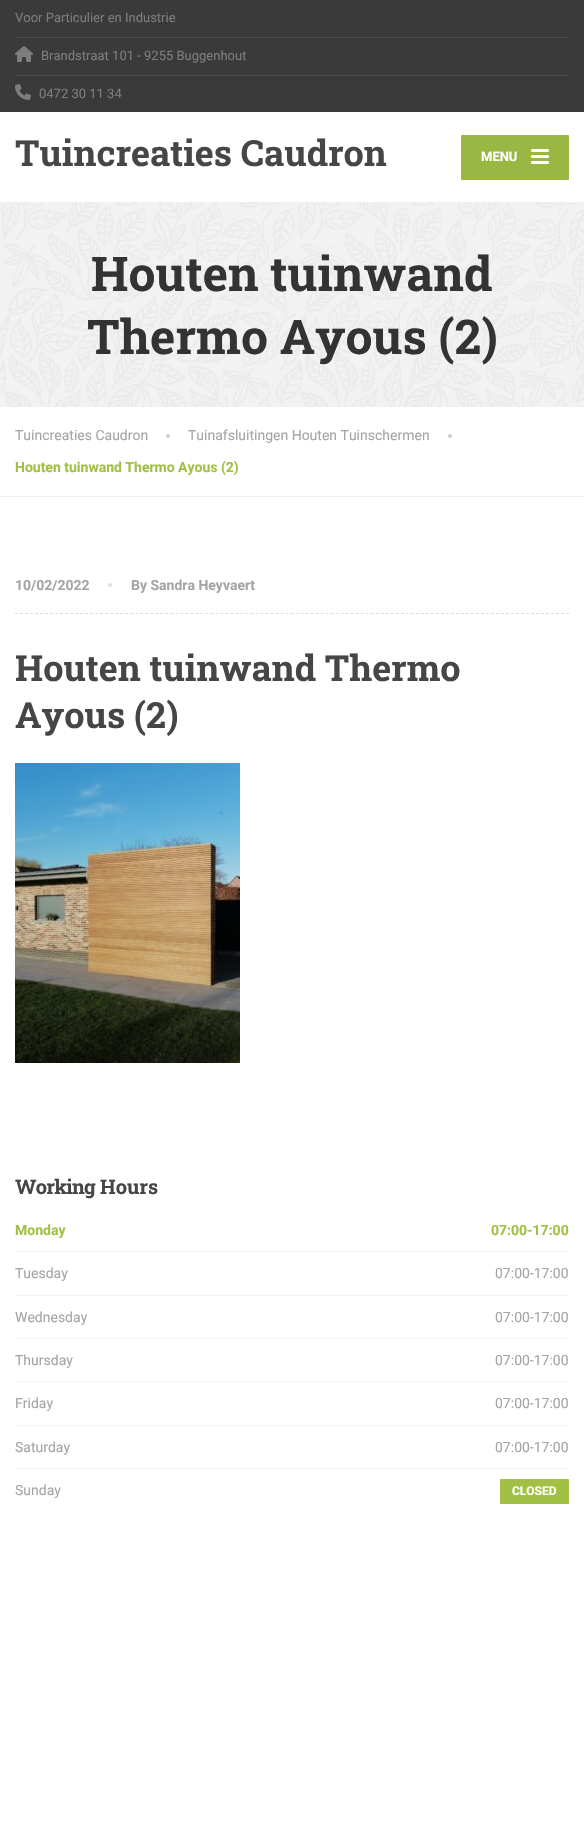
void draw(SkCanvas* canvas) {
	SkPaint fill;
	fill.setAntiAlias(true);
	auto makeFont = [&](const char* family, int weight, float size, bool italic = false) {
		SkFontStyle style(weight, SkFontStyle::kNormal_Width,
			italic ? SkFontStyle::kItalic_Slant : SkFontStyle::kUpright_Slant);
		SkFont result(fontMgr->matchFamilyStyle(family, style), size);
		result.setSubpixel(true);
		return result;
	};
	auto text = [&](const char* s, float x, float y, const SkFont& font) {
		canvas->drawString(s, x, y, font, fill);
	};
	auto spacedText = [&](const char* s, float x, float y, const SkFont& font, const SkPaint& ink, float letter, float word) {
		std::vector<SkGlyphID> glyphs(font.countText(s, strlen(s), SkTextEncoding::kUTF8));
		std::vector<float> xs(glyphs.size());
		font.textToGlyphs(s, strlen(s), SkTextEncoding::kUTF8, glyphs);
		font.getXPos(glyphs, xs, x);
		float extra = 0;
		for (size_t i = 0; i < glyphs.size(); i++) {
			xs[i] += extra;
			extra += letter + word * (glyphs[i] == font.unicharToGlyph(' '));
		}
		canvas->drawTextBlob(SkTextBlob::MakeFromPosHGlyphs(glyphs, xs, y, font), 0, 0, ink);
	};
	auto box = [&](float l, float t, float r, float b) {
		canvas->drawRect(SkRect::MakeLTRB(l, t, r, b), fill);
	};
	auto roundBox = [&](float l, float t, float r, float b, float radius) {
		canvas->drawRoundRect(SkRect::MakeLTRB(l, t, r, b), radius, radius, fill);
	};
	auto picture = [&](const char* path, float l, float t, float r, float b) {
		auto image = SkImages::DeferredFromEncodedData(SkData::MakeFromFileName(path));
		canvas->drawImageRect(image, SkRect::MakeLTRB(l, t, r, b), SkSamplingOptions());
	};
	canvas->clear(0xFFFFFFFF);
	fill.setColor(0xFF3A3A3A);
	box(0, 0, 584, 112);
	fill.setColor(0xFF4E4E4E);
	box(15, 37, 569, 38);
	picture("image0.png", 15, 46, 33, 62);
	box(15, 75, 569, 76);
	picture("image1.png", 15, 84, 31, 100);
	fill.setColor(0xFF9AB643);
	roundBox(461, 135, 569, 180, 1);
	fill.setColor(0xFFFFFFFF);
	roundBox(531, 149, 549, 152, 1);
	roundBox(531, 155, 549, 158, 1);
	roundBox(531, 161, 549, 164, 1);
	picture("image2.png", 0, 202, 584, 407);
	fill.setColor(0xFFF0F0F0);
	box(0, 496, 584, 497);
	fill.setColor(0xFFCECECE);
	canvas->drawCircle(168, 436, 2, fill);
	canvas->drawCircle(450, 436, 2, fill);
	fill.setStyle(SkPaint::kStroke_Style);
	fill.setStrokeWidth(1);
	fill.setColor(0xFFDEDEDE);
	fill.setPathEffect(SkDashPathEffect::Make({{3, 2.01f}}, 0));
	canvas->drawPath(SkPathBuilder().moveTo(15, 613.5f).lineTo(569, 613.5f).detach(), fill);
	fill.setPathEffect(nullptr);
	fill.setStyle(SkPaint::kFill_Style);
	canvas->drawCircle(110, 585, 2, fill);
	picture("image3.png", 15, 763, 240, 1063);
	fill.setColor(0xFFF2F2F2);
	box(15, 1251, 569, 1252);
	box(15, 1295, 569, 1296);
	box(15, 1338, 569, 1339);
	box(15, 1381, 569, 1382);
	box(15, 1425, 569, 1426);
	box(15, 1468, 569, 1469);
	fill.setColor(0xFFA2C046);
	roundBox(500, 1479, 569, 1504, 1);
	auto font1 = makeFont("Roboto", 400, 13);
	fill.setColor(0xFF7D7D7D);
	text("Voor Particulier en Industrie", 15, 22, font1);
	text("Brandstraat 101 - 9255 Buggenhout", 41, 60, font1);
	text("0472 30 11 34", 39, 98, font1);
	auto font2 = makeFont("Roboto Slab", 700, 36);
	fill.setColor(0xFF464646);
	text("Tuincreaties Caudron", 15, 166, font2);
	auto font3 = makeFont("Roboto", 700, 13);
	fill.setColor(0xFFFFFFFF);
	text("MENU", 481, 161, font3);
	auto font4 = makeFont("Roboto Slab", 700, 48);
	fill.setColor(0xFF333333);
	text("Houten tuinwand", 91, 291, font4);
	text("Thermo Ayous (2)", 87, 354, font4);
	auto font5 = makeFont("Roboto", 400, 14);
	fill.setColor(0xFFA5A5A5);
	text("Tuincreaties Caudron", 15, 440, font5);
	text("Tuinafsluitingen Houten Tuinschermen", 188, 440, font5);
	auto font6 = makeFont("Roboto", 700, 14);
	fill.setColor(0xFFA2C046);
	text("Houten tuinwand Thermo Ayous (2)", 15, 472, font6);
	fill.setColor(0xFFA5A5A5);
	text("10/02/2022", 15, 590, font6);
	text("By Sandra Heyvaert", 131, 590, font6);
	fill.setColor(0xFF464646);
	text("Houten tuinwand Thermo", 15, 681, font2);
	text("Ayous (2)", 15, 728, font2);
	auto font7 = makeFont("Roboto Slab", 700, 20);
	spacedText("Working", 15, 1194, font7, fill, -0.75f, 0);
	text("Hours", 100, 1194, font7);
	fill.setColor(0xFFA2C046);
	text("Monday", 15, 1235, font6);
	text("07:00-17:00", 491, 1235, font6);
	fill.setColor(0xFFA5A5A5);
	text("Tuesday", 15, 1278, font5);
	text("07:00-17:00", 495, 1278, font5);
	text("Wednesday", 15, 1322, font5);
	text("07:00-17:00", 495, 1322, font5);
	text("Thursday", 15, 1365, font5);
	text("07:00-17:00", 495, 1365, font5);
	text("Friday", 15, 1408, font5);
	text("07:00-17:00", 495, 1408, font5);
	text("Saturday", 15, 1452, font5);
	text("07:00-17:00", 495, 1452, font5);
	text("Sunday", 15, 1495, font5);
	auto font8 = makeFont("Roboto", 700, 12);
	fill.setColor(0xFFFFFFFF);
	text("CLOSED", 512, 1495, font8);
}
